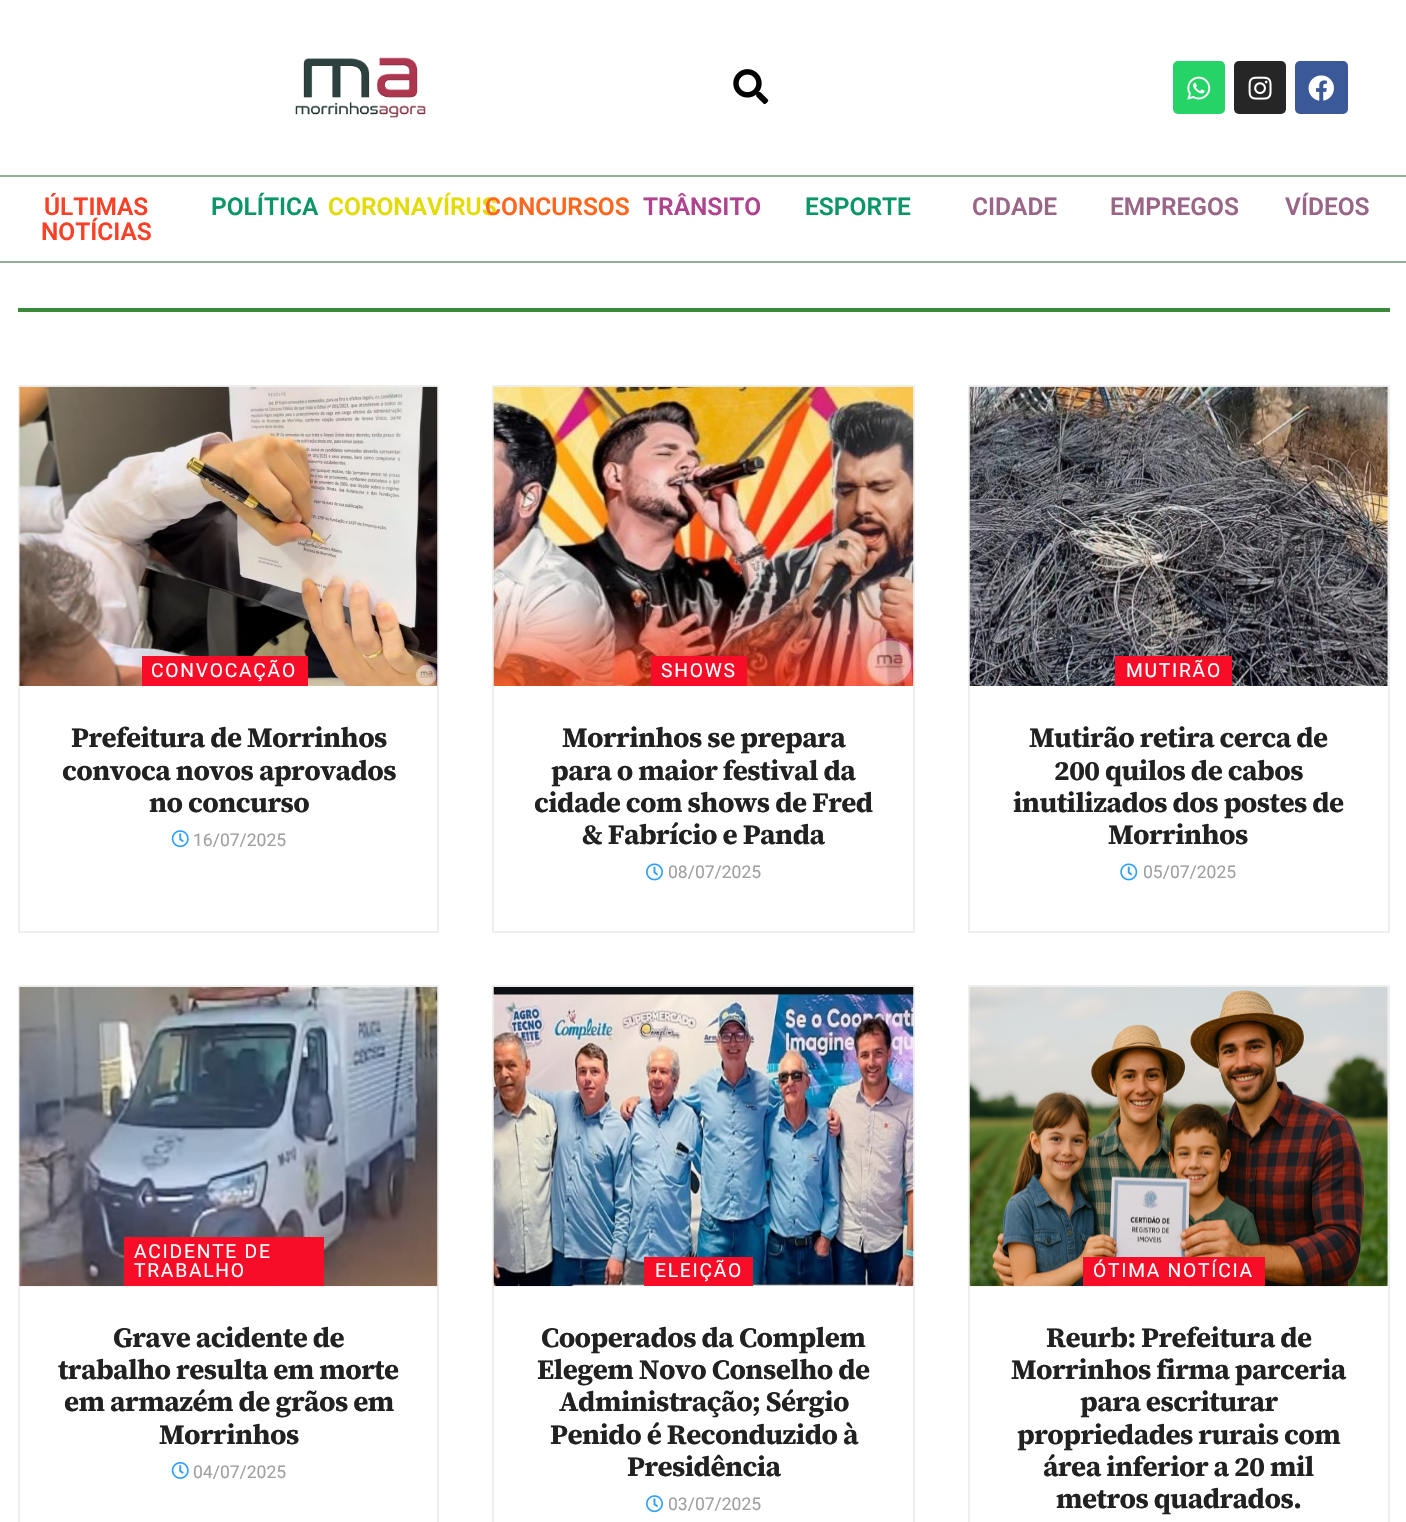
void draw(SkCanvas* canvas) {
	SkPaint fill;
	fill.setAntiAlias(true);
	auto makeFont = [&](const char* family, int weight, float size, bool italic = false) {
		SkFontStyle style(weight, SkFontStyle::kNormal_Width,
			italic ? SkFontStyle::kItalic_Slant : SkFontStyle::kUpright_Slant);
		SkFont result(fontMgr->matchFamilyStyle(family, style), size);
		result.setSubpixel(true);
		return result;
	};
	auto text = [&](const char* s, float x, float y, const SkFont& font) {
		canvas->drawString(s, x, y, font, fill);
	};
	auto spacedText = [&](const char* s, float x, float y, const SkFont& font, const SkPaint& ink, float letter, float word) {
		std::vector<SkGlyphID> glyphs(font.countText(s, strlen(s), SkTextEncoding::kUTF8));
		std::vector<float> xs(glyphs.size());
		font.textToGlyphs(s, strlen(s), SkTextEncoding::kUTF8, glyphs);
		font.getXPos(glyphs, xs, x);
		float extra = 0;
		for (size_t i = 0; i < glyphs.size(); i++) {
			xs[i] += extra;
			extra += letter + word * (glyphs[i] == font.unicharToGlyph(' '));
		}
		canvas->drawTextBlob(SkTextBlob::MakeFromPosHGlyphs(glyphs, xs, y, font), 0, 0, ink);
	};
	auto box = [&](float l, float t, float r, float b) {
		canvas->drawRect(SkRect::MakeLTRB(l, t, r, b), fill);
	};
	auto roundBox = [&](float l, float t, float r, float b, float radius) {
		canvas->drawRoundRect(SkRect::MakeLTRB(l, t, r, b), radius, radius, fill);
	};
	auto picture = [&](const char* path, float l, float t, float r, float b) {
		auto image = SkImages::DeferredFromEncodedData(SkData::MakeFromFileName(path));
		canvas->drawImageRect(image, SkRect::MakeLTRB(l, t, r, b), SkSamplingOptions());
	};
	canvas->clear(0xFFFFFFFF);
	picture("image0.png", 295, 57, 426, 118);
	picture("image1.png", 733, 69, 769, 105);
	fill.setColor(0xFF25D366);
	roundBox(1173, 61, 1225, 114, 5);
	picture("image2.png", 1187, 76, 1211, 100);
	fill.setColor(0xFF262626);
	roundBox(1234, 61, 1286, 114, 5);
	picture("image3.png", 1248, 76, 1272, 100);
	fill.setColor(0xFF3B5998);
	roundBox(1295, 61, 1348, 114, 5);
	picture("image4.png", 1308, 75, 1334, 101);
	fill.setColor(0xFF94AF97);
	box(0, 175, 1406, 177);
	box(0, 261, 1406, 263);
	fill.setColor(0xFF3A8A3A);
	box(18, 308, 1390, 312);
	fill.setStyle(SkPaint::kStroke_Style);
	fill.setStrokeWidth(2);
	fill.setColor(0xFFEEEEEE);
	canvas->drawRect(SkRect::MakeLTRB(19, 386, 438, 932), fill);
	fill.setStyle(SkPaint::kFill_Style);
	fill.setColor(0xFFF7F7F7);
	box(19, 387, 438, 686);
	picture("image5.png", 19, 386, 438, 686);
	fill.setColor(0xFFF70D28);
	box(142, 656, 308, 686);
	picture("image6.png", 171, 830, 189, 848);
	fill.setStyle(SkPaint::kStroke_Style);
	fill.setColor(0xFFEEEEEE);
	canvas->drawRect(SkRect::MakeLTRB(493, 386, 914, 932), fill);
	fill.setStyle(SkPaint::kFill_Style);
	fill.setColor(0xFFF7F7F7);
	box(913, 387, 914, 686);
	picture("image7.png", 493, 386, 914, 686);
	fill.setColor(0xFFF70D28);
	box(651, 656, 747, 686);
	picture("image8.png", 646, 863, 663, 881);
	fill.setStyle(SkPaint::kStroke_Style);
	fill.setColor(0xFFEEEEEE);
	canvas->drawRect(SkRect::MakeLTRB(969, 386, 1389, 932), fill);
	fill.setStyle(SkPaint::kFill_Style);
	fill.setColor(0xFFF7F7F7);
	box(1387, 387, 1388, 686);
	picture("image9.png", 969, 386, 1388, 686);
	fill.setColor(0xFFF70D28);
	box(1115, 656, 1232, 686);
	picture("image10.png", 1120, 863, 1138, 881);
	fill.setStyle(SkPaint::kStroke_Style);
	fill.setColor(0xFFEEEEEE);
	canvas->drawRect(SkRect::MakeLTRB(19, 986, 438, 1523), fill);
	fill.setStyle(SkPaint::kFill_Style);
	fill.setColor(0xFFF7F7F7);
	box(19, 987, 438, 1286);
	picture("image11.png", 19, 987, 438, 1287);
	fill.setColor(0xFFF70D28);
	box(124, 1237, 324, 1286);
	picture("image12.png", 171, 1462, 189, 1479);
	fill.setStyle(SkPaint::kStroke_Style);
	fill.setColor(0xFFEEEEEE);
	canvas->drawRect(SkRect::MakeLTRB(493, 986, 914, 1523), fill);
	fill.setStyle(SkPaint::kFill_Style);
	fill.setColor(0xFFF7F7F7);
	box(913, 987, 914, 1286);
	picture("image13.png", 493, 987, 914, 1287);
	fill.setColor(0xFFF70D28);
	box(644, 1257, 753, 1286);
	picture("image14.png", 646, 1495, 663, 1513);
	fill.setStyle(SkPaint::kStroke_Style);
	fill.setColor(0xFFEEEEEE);
	canvas->drawRect(SkRect::MakeLTRB(969, 986, 1389, 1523), fill);
	fill.setStyle(SkPaint::kFill_Style);
	fill.setColor(0xFFF7F7F7);
	box(1387, 987, 1388, 1286);
	picture("image15.png", 969, 987, 1388, 1287);
	fill.setColor(0xFFF70D28);
	box(1083, 1257, 1265, 1286);
	auto font1 = makeFont("Roboto", 600, 24.5f);
	fill.setColor(0xFFFA4127);
	text("ÚLTIMAS", 44, 215, font1);
	text("NOTÍCIAS", 41, 240, font1);
	fill.setColor(0xFF0B9668);
	text("POLÍTICA", 211, 215, font1);
	fill.setColor(0xFFE3DB05);
	text("CORONAVÍRUS", 328, 215, font1);
	fill.setColor(0xFFFF671F);
	text("CONCURSOS", 485, 215, font1);
	fill.setColor(0xFFB0438F);
	text("TRÂNSITO", 643, 215, font1);
	fill.setColor(0xFF0B9668);
	text("ESPORTE", 805, 215, font1);
	fill.setColor(0xFF996688);
	text("CIDADE", 972, 215, font1);
	text("EMPREGOS", 1110, 215, font1);
	text("VÍDEOS", 1285, 215, font1);
	auto font2 = makeFont("Roboto", 400, 19.25f);
	fill.setColor(0xFFFFFFFF);
	spacedText("CONVOCAÇÃO", 151, 677, font2, fill, 1.75f, 0);
	auto font3 = makeFont("Source Serif 4", 700, 28);
	fill.setColor(0xFF212121);
	spacedText("Prefeitura de Morrinhos", 71, 747, font3, fill, -0.55f, 0);
	spacedText("convoca novos aprovados", 62, 780, font3, fill, -0.55f, 0);
	spacedText("no concurso", 149, 812, font3, fill, -0.55f, 0);
	auto font4 = makeFont("Roboto", 400, 17.5f);
	fill.setColor(0xFFA0A0A0);
	text("16/07/2025", 193, 846, font4);
	fill.setColor(0xFFFFFFFF);
	spacedText("SHOWS", 661, 677, font2, fill, 1.75f, 0);
	fill.setColor(0xFF212121);
	spacedText("Morrinhos se prepara", 562, 747, font3, fill, -0.55f, 0);
	spacedText("para o maior festival da", 551, 780, font3, fill, -0.55f, 0);
	spacedText("cidade com shows de Fred", 534, 812, font3, fill, -0.55f, 0);
	spacedText("& Fabrício e Panda", 582, 844, font3, fill, -0.55f, 0);
	fill.setColor(0xFFA0A0A0);
	text("08/07/2025", 668, 878, font4);
	fill.setColor(0xFFFFFFFF);
	spacedText("MUTIRÃO", 1126, 677, font2, fill, 1.75f, 0);
	fill.setColor(0xFF212121);
	spacedText("Mutirão retira cerca de", 1029, 747, font3, fill, -0.55f, 0);
	spacedText("200 quilos de cabos", 1054, 780, font3, fill, -0.55f, 0);
	spacedText("inutilizados dos postes de", 1013, 812, font3, fill, -0.55f, 0);
	spacedText("Morrinhos", 1108, 844, font3, fill, -0.55f, 0);
	fill.setColor(0xFFA0A0A0);
	text("05/07/2025", 1143, 878, font4);
	fill.setColor(0xFFFFFFFF);
	spacedText("ACIDENTE DE", 134, 1258, font2, fill, 1.75f, 0);
	spacedText("TRABALHO", 134, 1277, font2, fill, 1.75f, 0);
	fill.setColor(0xFF212121);
	spacedText("Grave acidente de", 113, 1347, font3, fill, -0.55f, 0);
	spacedText("trabalho resulta em morte", 58, 1379, font3, fill, -0.55f, 0);
	spacedText("em armazém de grãos em", 64, 1411, font3, fill, -0.55f, 0);
	spacedText("Morrinhos", 159, 1444, font3, fill, -0.55f, 0);
	fill.setColor(0xFFA0A0A0);
	text("04/07/2025", 193, 1478, font4);
	fill.setColor(0xFFFFFFFF);
	spacedText("ELEIÇÃO", 655, 1277, font2, fill, 1.75f, 0);
	fill.setColor(0xFF212121);
	spacedText("Cooperados da Complem", 541, 1347, font3, fill, -0.55f, 0);
	spacedText("Elegem Novo Conselho de", 537, 1379, font3, fill, -0.55f, 0);
	spacedText("Administração; Sérgio", 559, 1411, font3, fill, -0.55f, 0);
	spacedText("Penido é Reconduzido à", 550, 1444, font3, fill, -0.55f, 0);
	spacedText("Presidência", 627, 1476, font3, fill, -0.55f, 0);
	fill.setColor(0xFFA0A0A0);
	text("03/07/2025", 668, 1510, font4);
	fill.setColor(0xFFFFFFFF);
	spacedText("ÓTIMA NOTÍCIA", 1093, 1277, font2, fill, 1.75f, 0);
	fill.setColor(0xFF212121);
	spacedText("Reurb: Prefeitura de", 1046, 1347, font3, fill, -0.55f, 0);
	spacedText("Morrinhos firma parceria", 1011, 1379, font3, fill, -0.55f, 0);
	spacedText("para escriturar", 1080, 1411, font3, fill, -0.55f, 0);
	spacedText("propriedades rurais com", 1017, 1444, font3, fill, -0.55f, 0);
	spacedText("área inferior a 20 mil", 1043, 1476, font3, fill, -0.55f, 0);
	spacedText("metros quadrados.", 1056, 1508, font3, fill, -0.55f, 0);
}
